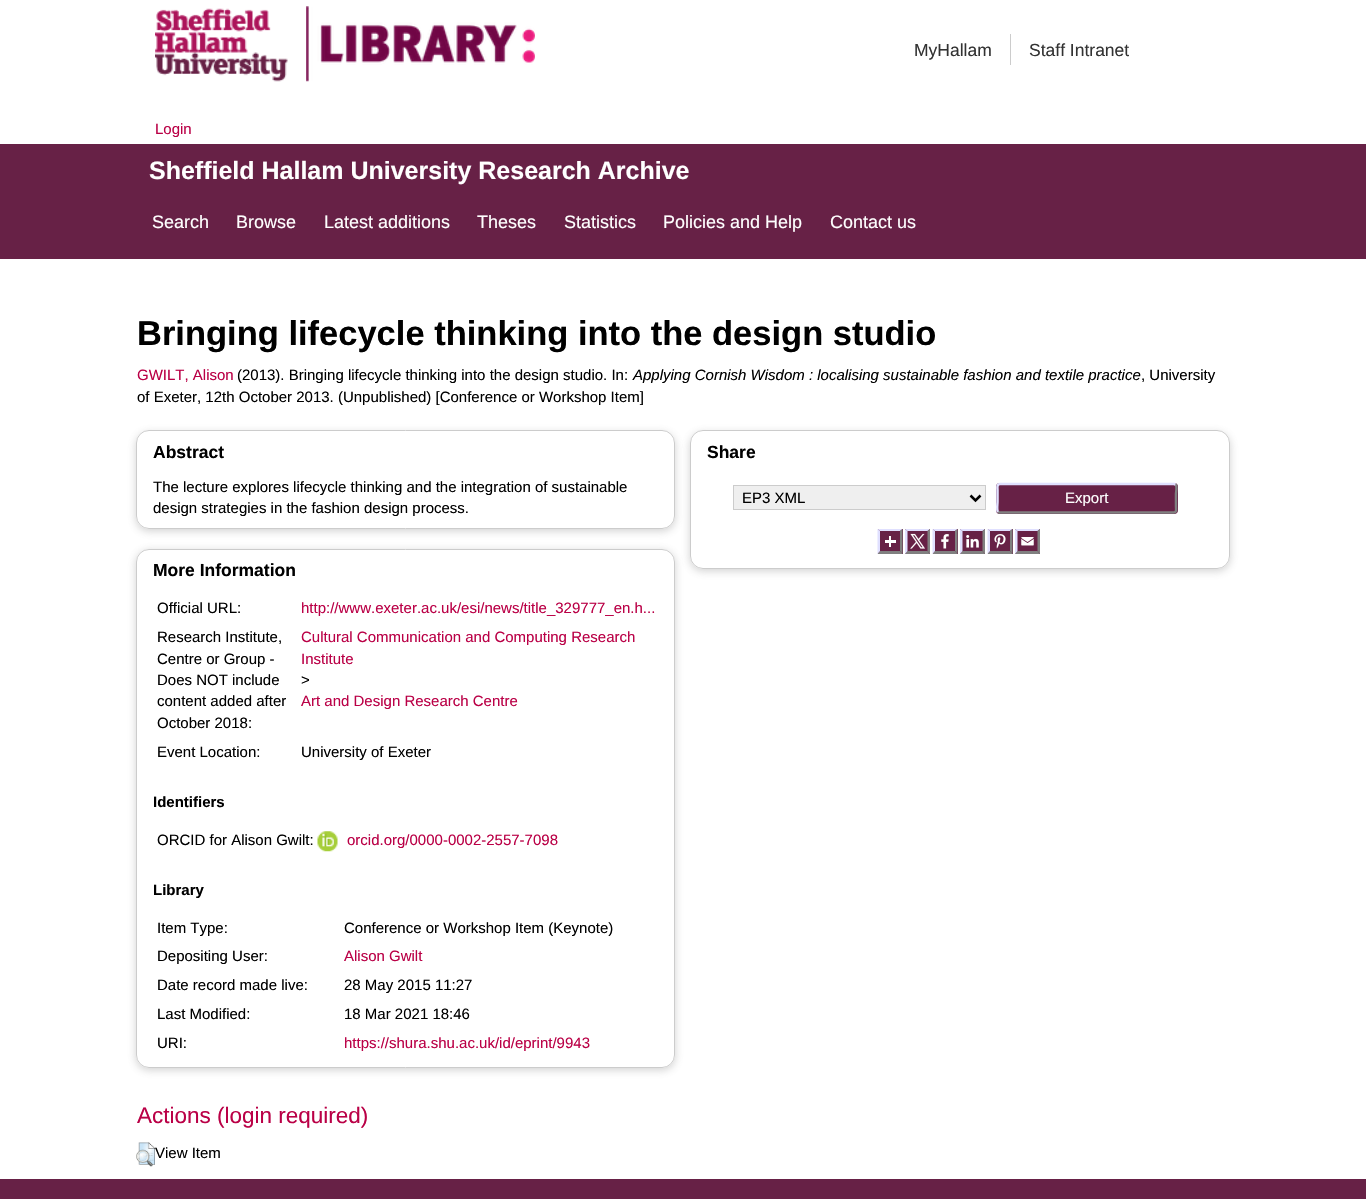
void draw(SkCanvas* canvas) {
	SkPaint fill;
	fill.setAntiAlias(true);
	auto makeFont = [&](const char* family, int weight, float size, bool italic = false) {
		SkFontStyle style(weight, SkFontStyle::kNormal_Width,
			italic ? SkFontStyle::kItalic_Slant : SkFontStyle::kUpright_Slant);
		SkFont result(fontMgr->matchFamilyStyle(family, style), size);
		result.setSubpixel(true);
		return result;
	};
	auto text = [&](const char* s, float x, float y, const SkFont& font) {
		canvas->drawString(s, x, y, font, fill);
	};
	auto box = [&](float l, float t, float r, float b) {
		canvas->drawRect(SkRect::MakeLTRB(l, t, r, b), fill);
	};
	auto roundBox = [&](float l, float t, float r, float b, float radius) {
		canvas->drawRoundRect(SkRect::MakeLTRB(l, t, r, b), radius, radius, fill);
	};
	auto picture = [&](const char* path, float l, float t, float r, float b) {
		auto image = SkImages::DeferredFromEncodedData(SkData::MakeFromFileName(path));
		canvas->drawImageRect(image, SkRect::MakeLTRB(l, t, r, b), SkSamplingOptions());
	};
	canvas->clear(0xFFFFFFFF);
	picture("image0.png", 155, 8, 288, 82);
	picture("image1.png", 306, 6, 535, 82);
	fill.setColor(0xFFCCCCCC);
	box(1010, 34, 1011, 65);
	fill.setColor(0xFF672146);
	box(0, 144, 1366, 259);
	canvas->save();
	canvas->clipPath(SkPathBuilder(SkPathFillType::kEvenOdd).moveTo(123, 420).lineTo(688, 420).lineTo(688, 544).lineTo(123, 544).close().moveTo(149, 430).lineTo(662, 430).cubicTo(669, 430, 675, 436, 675, 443).lineTo(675, 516).cubicTo(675, 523, 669, 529, 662, 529).lineTo(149, 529).cubicTo(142, 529, 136, 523, 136, 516).lineTo(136, 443).cubicTo(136, 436, 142, 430, 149, 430).close().detach(), true);
	fill.setColor(0x4D646464);
	fill.setMaskFilter(SkMaskFilter::MakeBlur(kNormal_SkBlurStyle, 4));
	canvas->drawRoundRect(SkRect::MakeLTRB(136, 433, 675, 531), 13, 13, fill);
	fill.setMaskFilter(nullptr);
	canvas->restore();
	fill.setStyle(SkPaint::kStroke_Style);
	fill.setStrokeWidth(1);
	fill.setColor(0xFFCCCCCC);
	canvas->drawRoundRect(SkRect::MakeLTRB(136.5f, 430.5f, 674.5f, 528.5f), 12.5f, 12.5f, fill);
	canvas->save();
	canvas->clipPath(SkPathBuilder(SkPathFillType::kEvenOdd).moveTo(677, 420).lineTo(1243, 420).lineTo(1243, 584).lineTo(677, 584).close().moveTo(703, 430).lineTo(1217, 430).cubicTo(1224, 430, 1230, 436, 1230, 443).lineTo(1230, 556).cubicTo(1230, 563, 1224, 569, 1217, 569).lineTo(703, 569).cubicTo(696, 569, 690, 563, 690, 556).lineTo(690, 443).cubicTo(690, 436, 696, 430, 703, 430).close().detach(), true);
	fill.setStyle(SkPaint::kFill_Style);
	fill.setColor(0x4D646464);
	fill.setMaskFilter(SkMaskFilter::MakeBlur(kNormal_SkBlurStyle, 4));
	canvas->drawRoundRect(SkRect::MakeLTRB(690, 433, 1230, 571), 13, 13, fill);
	fill.setMaskFilter(nullptr);
	canvas->restore();
	fill.setStyle(SkPaint::kStroke_Style);
	fill.setColor(0xFFCCCCCC);
	canvas->drawRoundRect(SkRect::MakeLTRB(690.5f, 430.5f, 1229.5f, 568.5f), 12.5f, 12.5f, fill);
	fill.setStyle(SkPaint::kFill_Style);
	fill.setColor(0xFFEFEFEF);
	canvas->drawRect(SkRect::MakeLTRB(733.5f, 485.5f, 985.5f, 509.5f), fill);
	fill.setStyle(SkPaint::kStroke_Style);
	fill.setColor(0xFFCCCCCC);
	canvas->drawRect(SkRect::MakeLTRB(733.5f, 485.5f, 985.5f, 509.5f), fill);
	fill.setStrokeWidth(2.5f);
	fill.setColor(0xFF000000);
	canvas->drawPath(SkPathBuilder().moveTo(970.5f, 495.5f).lineTo(975.5f, 500.5f).lineTo(980.5f, 495.5f).detach(), fill);
	fill.setStyle(SkPaint::kFill_Style);
	fill.setColor(0xFF672146);
	roundBox(996, 483, 1178, 514, 4);
	fill.setStyle(SkPaint::kStroke_Style);
	fill.setColor(0xFF808080);
	canvas->drawPath(SkPathBuilder().moveTo(1175.5f, 484.5f).cubicTo(1177.5f, 486.5f, 1176, 492, 1176, 494).lineTo(1176, 506).cubicTo(1176, 508, 1177, 512.5f, 1174, 512.5f).lineTo(999.5f, 512.5f).lineTo(998, 512).detach(), fill);
	fill.setColor(0xFFE0E0FF);
	canvas->drawPath(SkPathBuilder().moveTo(998, 512).cubicTo(996.5f, 510, 997.5f, 504.5f, 997.5f, 502).lineTo(997.5f, 490).cubicTo(997.5f, 488.5f, 996.5f, 484, 1000, 484).lineTo(1174, 484).lineTo(1175.5f, 484.5f).detach(), fill);
	fill.setStyle(SkPaint::kFill_Style);
	fill.setColor(0xFF672146);
	box(878, 529, 903, 554);
	fill.setColor(0xFFE0E0FF);
	canvas->drawPath(SkPathBuilder().moveTo(877.5f, 529).lineTo(902.5f, 529).lineTo(900, 531).lineTo(880, 531).close().detach(), fill);
	fill.setColor(0xFF808080);
	canvas->drawPath(SkPathBuilder().moveTo(902.5f, 529).lineTo(902.5f, 554).lineTo(900, 551).lineTo(900, 531).close().detach(), fill);
	canvas->drawPath(SkPathBuilder().moveTo(902.5f, 554).lineTo(877.5f, 554).lineTo(880, 551).lineTo(900, 551).close().detach(), fill);
	fill.setColor(0xFFE0E0FF);
	canvas->drawPath(SkPathBuilder().moveTo(877.5f, 554).lineTo(877.5f, 529).lineTo(880, 531).lineTo(880, 551).close().detach(), fill);
	fill.setColor(0xFF672146);
	box(905, 529, 930, 554);
	fill.setColor(0xFFE0E0FF);
	canvas->drawPath(SkPathBuilder().moveTo(905, 529).lineTo(930, 529).lineTo(927.5f, 531).lineTo(907.5f, 531).close().detach(), fill);
	fill.setColor(0xFF808080);
	canvas->drawPath(SkPathBuilder().moveTo(930, 529).lineTo(930, 554).lineTo(927.5f, 551).lineTo(927.5f, 531).close().detach(), fill);
	canvas->drawPath(SkPathBuilder().moveTo(930, 554).lineTo(905, 554).lineTo(907.5f, 551).lineTo(927.5f, 551).close().detach(), fill);
	fill.setColor(0xFFE0E0FF);
	canvas->drawPath(SkPathBuilder().moveTo(905, 554).lineTo(905, 529).lineTo(907.5f, 531).lineTo(907.5f, 551).close().detach(), fill);
	fill.setColor(0xFF672146);
	box(933, 529, 958, 554);
	fill.setColor(0xFFE0E0FF);
	canvas->drawPath(SkPathBuilder().moveTo(932.5f, 529).lineTo(957.5f, 529).lineTo(955, 531).lineTo(935, 531).close().detach(), fill);
	fill.setColor(0xFF808080);
	canvas->drawPath(SkPathBuilder().moveTo(957.5f, 529).lineTo(957.5f, 554).lineTo(955, 551).lineTo(955, 531).close().detach(), fill);
	canvas->drawPath(SkPathBuilder().moveTo(957.5f, 554).lineTo(932.5f, 554).lineTo(935, 551).lineTo(955, 551).close().detach(), fill);
	fill.setColor(0xFFE0E0FF);
	canvas->drawPath(SkPathBuilder().moveTo(932.5f, 554).lineTo(932.5f, 529).lineTo(935, 531).lineTo(935, 551).close().detach(), fill);
	fill.setColor(0xFF672146);
	box(960, 529, 985, 554);
	fill.setColor(0xFFE0E0FF);
	canvas->drawPath(SkPathBuilder().moveTo(960, 529).lineTo(985, 529).lineTo(982.5f, 531).lineTo(962.5f, 531).close().detach(), fill);
	fill.setColor(0xFF808080);
	canvas->drawPath(SkPathBuilder().moveTo(985, 529).lineTo(985, 554).lineTo(982.5f, 551).lineTo(982.5f, 531).close().detach(), fill);
	canvas->drawPath(SkPathBuilder().moveTo(985, 554).lineTo(960, 554).lineTo(962.5f, 551).lineTo(982.5f, 551).close().detach(), fill);
	fill.setColor(0xFFE0E0FF);
	canvas->drawPath(SkPathBuilder().moveTo(960, 554).lineTo(960, 529).lineTo(962.5f, 531).lineTo(962.5f, 551).close().detach(), fill);
	fill.setColor(0xFF672146);
	box(988, 529, 1013, 554);
	fill.setColor(0xFFE0E0FF);
	canvas->drawPath(SkPathBuilder().moveTo(987.5f, 529).lineTo(1012.5f, 529).lineTo(1010, 531).lineTo(990, 531).close().detach(), fill);
	fill.setColor(0xFF808080);
	canvas->drawPath(SkPathBuilder().moveTo(1012.5f, 529).lineTo(1012.5f, 554).lineTo(1010, 551).lineTo(1010, 531).close().detach(), fill);
	canvas->drawPath(SkPathBuilder().moveTo(1012.5f, 554).lineTo(987.5f, 554).lineTo(990, 551).lineTo(1010, 551).close().detach(), fill);
	fill.setColor(0xFFE0E0FF);
	canvas->drawPath(SkPathBuilder().moveTo(987.5f, 554).lineTo(987.5f, 529).lineTo(990, 531).lineTo(990, 551).close().detach(), fill);
	fill.setColor(0xFF672146);
	box(1015, 529, 1040, 554);
	fill.setColor(0xFFE0E0FF);
	canvas->drawPath(SkPathBuilder().moveTo(1015, 529).lineTo(1040, 529).lineTo(1037.5f, 531).lineTo(1017.5f, 531).close().detach(), fill);
	fill.setColor(0xFFFFFFFF);
	box(889, 536, 891, 547);
	picture("image2.png", 910, 533, 925, 549);
	picture("image3.png", 941, 534, 949, 549);
	picture("image4.png", 966, 535, 979, 548);
	picture("image5.png", 994, 534, 1006, 549);
	fill.setColor(0xFF808080);
	canvas->drawPath(SkPathBuilder().moveTo(1040, 529).lineTo(1040, 554).lineTo(1037.5f, 551).lineTo(1037.5f, 531).close().detach(), fill);
	canvas->drawPath(SkPathBuilder().moveTo(1040, 554).lineTo(1015, 554).lineTo(1017.5f, 551).lineTo(1037.5f, 551).close().detach(), fill);
	fill.setColor(0xFFE0E0FF);
	canvas->drawPath(SkPathBuilder().moveTo(1015, 554).lineTo(1015, 529).lineTo(1017.5f, 531).lineTo(1017.5f, 551).close().detach(), fill);
	picture("image6.png", 1021, 537, 1034, 546);
	fill.setColor(0xFFFFFFFF);
	box(885, 540, 896, 543);
	canvas->save();
	canvas->clipPath(SkPathBuilder(SkPathFillType::kEvenOdd).moveTo(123, 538).lineTo(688, 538).lineTo(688, 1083).lineTo(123, 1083).close().moveTo(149, 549).lineTo(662, 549).cubicTo(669, 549, 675, 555, 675, 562).lineTo(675, 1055).cubicTo(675, 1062, 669, 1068, 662, 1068).lineTo(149, 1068).cubicTo(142, 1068, 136, 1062, 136, 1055).lineTo(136, 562).cubicTo(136, 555, 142, 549, 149, 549).close().detach(), true);
	fill.setColor(0x4D646464);
	fill.setMaskFilter(SkMaskFilter::MakeBlur(kNormal_SkBlurStyle, 4));
	canvas->drawRoundRect(SkRect::MakeLTRB(136, 551, 675, 1070), 13, 13, fill);
	fill.setMaskFilter(nullptr);
	canvas->restore();
	fill.setStyle(SkPaint::kStroke_Style);
	fill.setStrokeWidth(1);
	fill.setColor(0xFFCCCCCC);
	canvas->drawRoundRect(SkRect::MakeLTRB(136.5f, 549.5f, 674.5f, 1067.5f), 12.5f, 12.5f, fill);
	picture("image7.png", 317, 831, 338, 852);
	picture("image8.png", 136, 1142, 155, 1167);
	fill.setStyle(SkPaint::kFill_Style);
	fill.setColor(0xFF672146);
	box(0, 1179, 1366, 1199);
	auto font1 = makeFont("Liberation Sans", 400, 17.5f);
	fill.setColor(0xFF333333);
	text("MyHallam", 914, 56, font1);
	text("Staff Intranet", 1029, 56, font1);
	auto font2 = makeFont("Liberation Sans", 400, 15);
	fill.setColor(0xFFBA0046);
	text("Login", 155, 134, font2);
	auto font3 = makeFont("Liberation Sans", 700, 25);
	fill.setColor(0xFFFFFFFF);
	text("Sheffield Hallam University Research Archive", 149, 179, font3);
	auto font4 = makeFont("Liberation Sans", 400, 18);
	text("Search", 152, 228, font4);
	text("Browse", 236, 228, font4);
	text("Latest additions", 324, 228, font4);
	text("Theses", 477, 228, font4);
	text("Statistics", 564, 228, font4);
	text("Policies and Help", 663, 228, font4);
	text("Contact us", 830, 228, font4);
	auto font5 = makeFont("Liberation Sans", 700, 34.5f);
	fill.setColor(0xFF000000);
	text("Bringing lifecycle thinking into the design studio", 137, 345, font5);
	fill.setColor(0xFFBA0046);
	text("GWILT, Alison", 137, 380, font2);
	fill.setColor(0xFF000000);
	text("(2013). Bringing lifecycle thinking into the design studio. In:", 237, 380, font2);
	auto font6 = makeFont("Liberation Sans", 400, 15, true);
	text("Applying Cornish Wisdom : localising sustainable fashion and textile practice", 633, 380, font6);
	text(", University", 1141, 380, font2);
	text("of Exeter, 12th October 2013. (Unpublished) [Conference or Workshop Item]", 137, 402, font2);
	auto font7 = makeFont("Liberation Sans", 700, 17.5f);
	text("Abstract", 153, 458, font7);
	text("The lecture explores lifecycle thinking and the integration of sustainable", 153, 492, font2);
	text("design strategies in the fashion design process.", 153, 513, font2);
	text("Share", 707, 458, font7);
	text("EP3 XML", 742, 503, font2);
	fill.setColor(0xFFFFFFFF);
	text("Export", 1065, 503, font2);
	fill.setColor(0xFF000000);
	text("More Information", 153, 576, font7);
	text("Official URL:", 157, 613, font2);
	fill.setColor(0xFFBA0046);
	text("http://www.exeter.ac.uk/esi/news/title_329777_en.h...", 301, 613, font2);
	fill.setColor(0xFF000000);
	text("Research Institute,", 157, 642, font2);
	text("Centre or Group -", 157, 664, font2);
	text("Does NOT include", 157, 685, font2);
	text("content added after", 157, 706, font2);
	text("October 2018:", 157, 728, font2);
	fill.setColor(0xFFBA0046);
	text("Cultural Communication and Computing Research", 301, 642, font2);
	text("Institute", 301, 664, font2);
	fill.setColor(0xFF000000);
	text(">", 301, 685, font2);
	fill.setColor(0xFFBA0046);
	text("Art and Design Research Centre", 301, 706, font2);
	fill.setColor(0xFF000000);
	text("Event Location:", 157, 757, font2);
	text("University of Exeter", 301, 757, font2);
	auto font8 = makeFont("Liberation Sans", 700, 15);
	text("Identifiers", 153, 807, font8);
	text("ORCID for Alison Gwilt:", 157, 845, font2);
	fill.setColor(0xFFBA0046);
	text("orcid.org/0000-0002-2557-7098", 347, 845, font2);
	fill.setColor(0xFF000000);
	text("Library", 153, 895, font8);
	text("Item Type:", 157, 933, font2);
	text("Conference or Workshop Item (Keynote)", 344, 933, font2);
	text("Depositing User:", 157, 961, font2);
	fill.setColor(0xFFBA0046);
	text("Alison Gwilt", 344, 961, font2);
	fill.setColor(0xFF000000);
	text("Date record made live:", 157, 990, font2);
	text("28 May 2015 11:27", 344, 990, font2);
	text("Last Modified:", 157, 1019, font2);
	text("18 Mar 2021 18:46", 344, 1019, font2);
	text("URI:", 157, 1048, font2);
	fill.setColor(0xFFBA0046);
	text("https://shura.shu.ac.uk/id/eprint/9943", 344, 1048, font2);
	auto font9 = makeFont("Liberation Sans", 400, 22.5f);
	text("Actions (login required)", 137, 1123, font9);
	fill.setColor(0xFF000000);
	text("View Item", 155, 1158, font2);
}
